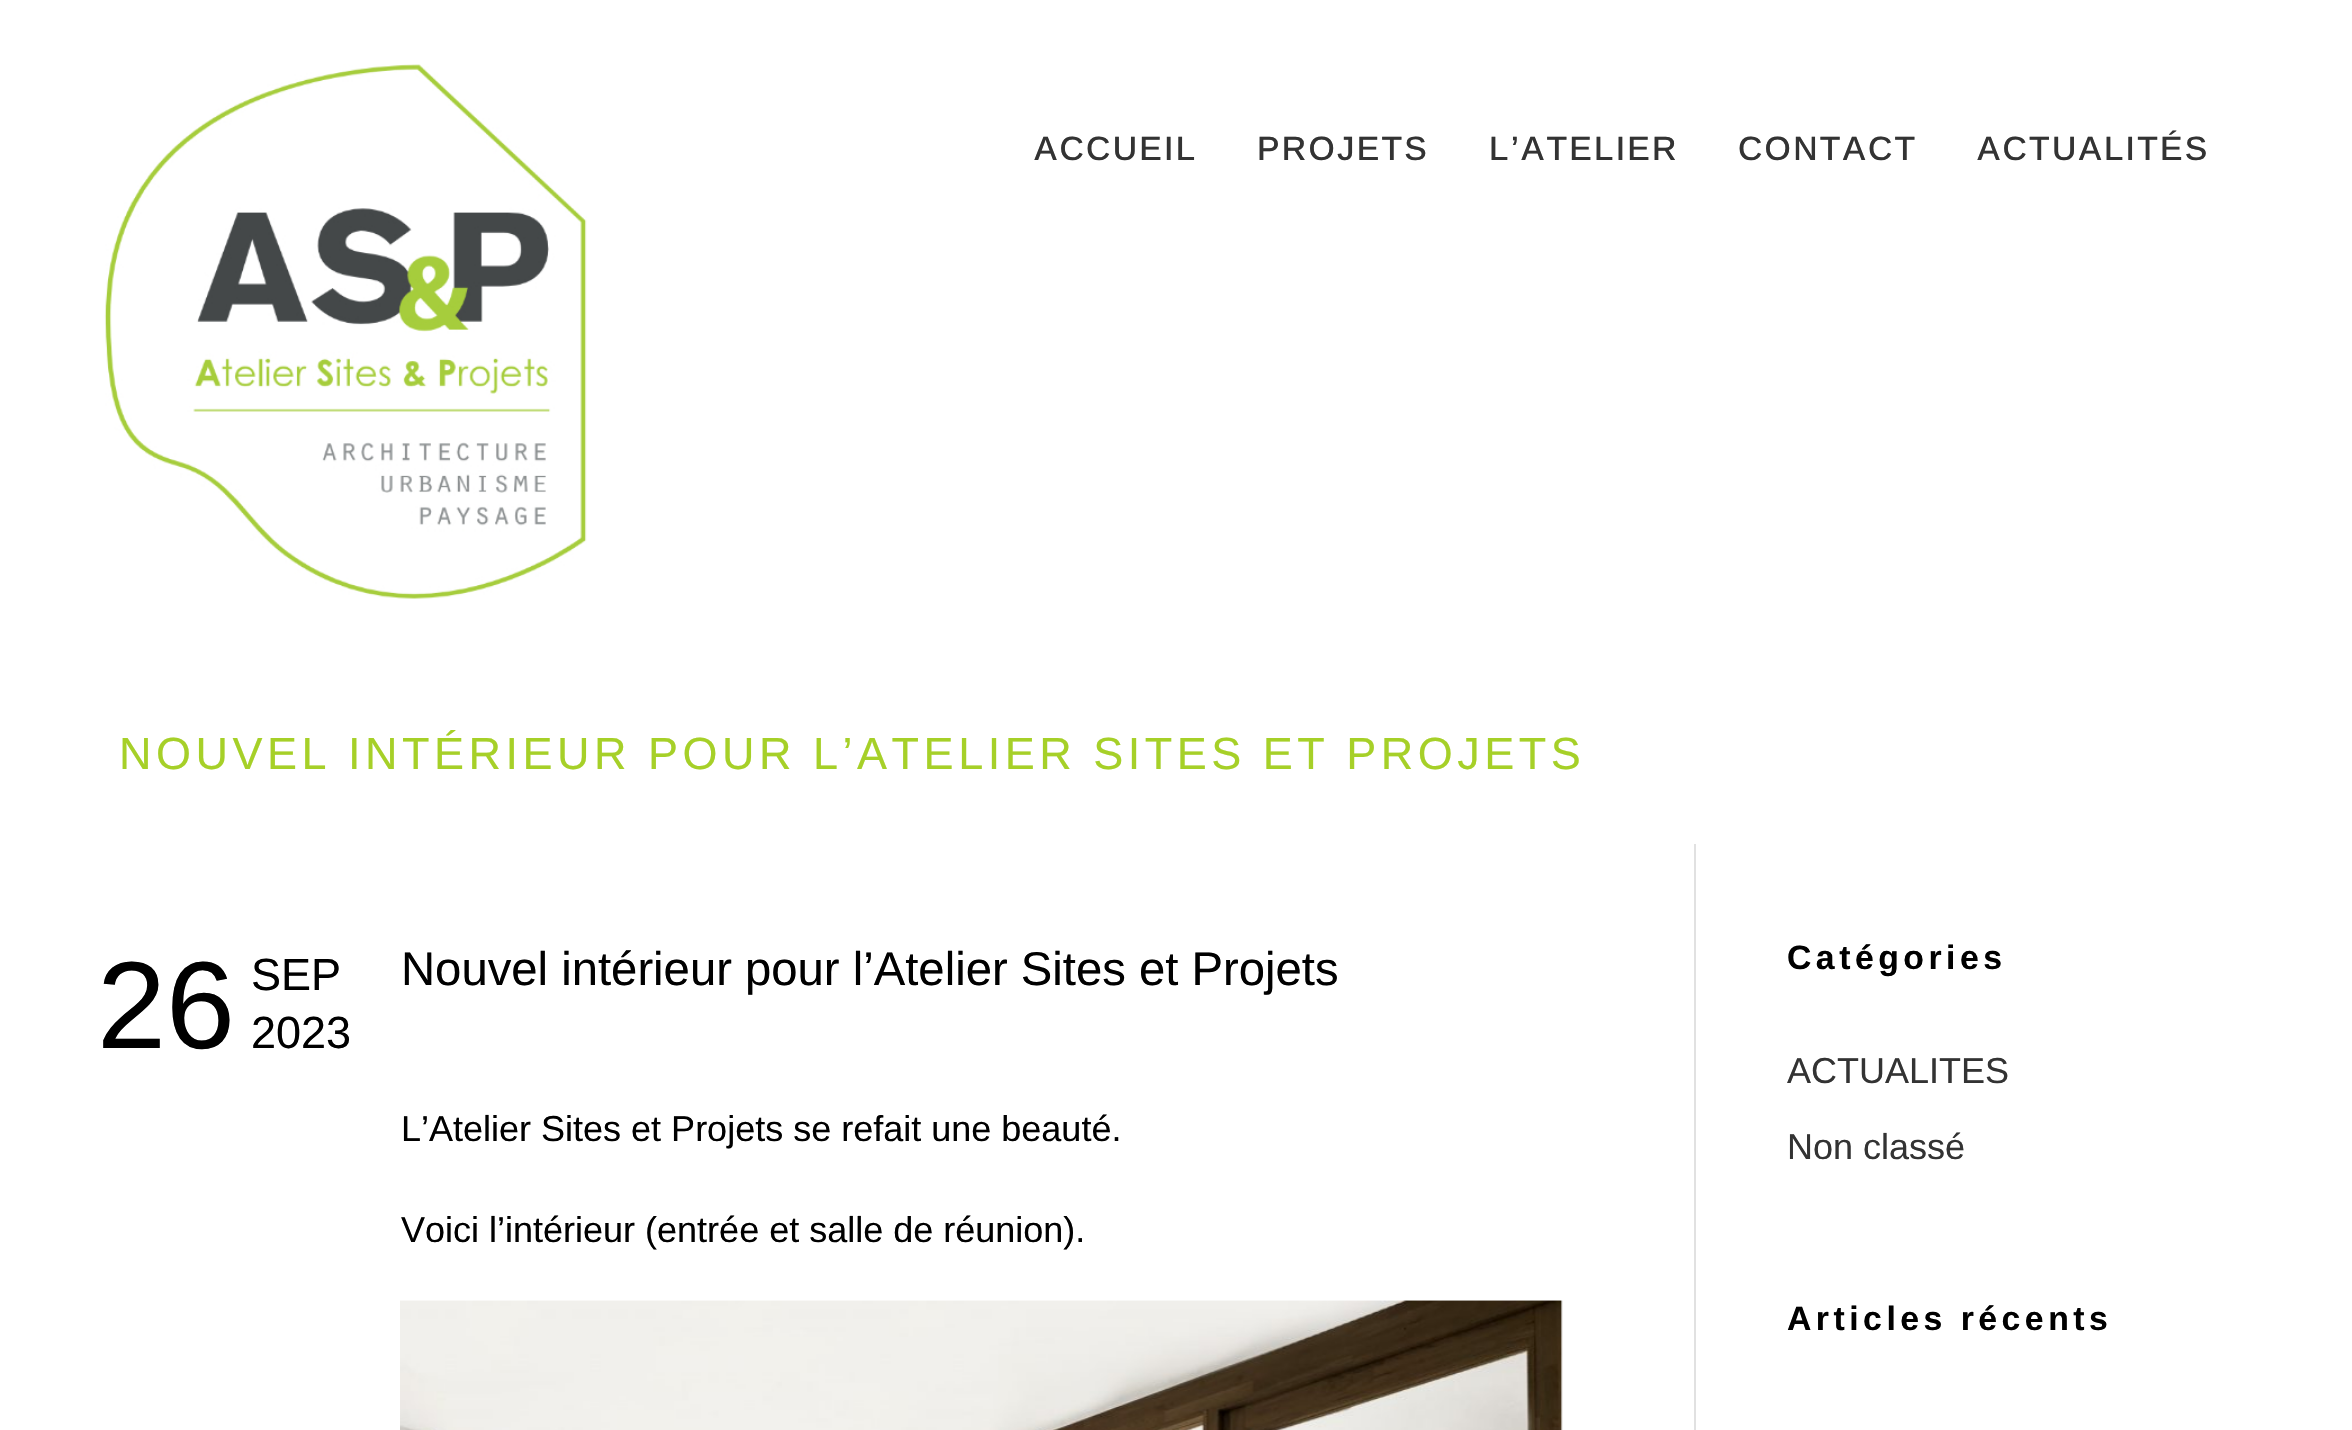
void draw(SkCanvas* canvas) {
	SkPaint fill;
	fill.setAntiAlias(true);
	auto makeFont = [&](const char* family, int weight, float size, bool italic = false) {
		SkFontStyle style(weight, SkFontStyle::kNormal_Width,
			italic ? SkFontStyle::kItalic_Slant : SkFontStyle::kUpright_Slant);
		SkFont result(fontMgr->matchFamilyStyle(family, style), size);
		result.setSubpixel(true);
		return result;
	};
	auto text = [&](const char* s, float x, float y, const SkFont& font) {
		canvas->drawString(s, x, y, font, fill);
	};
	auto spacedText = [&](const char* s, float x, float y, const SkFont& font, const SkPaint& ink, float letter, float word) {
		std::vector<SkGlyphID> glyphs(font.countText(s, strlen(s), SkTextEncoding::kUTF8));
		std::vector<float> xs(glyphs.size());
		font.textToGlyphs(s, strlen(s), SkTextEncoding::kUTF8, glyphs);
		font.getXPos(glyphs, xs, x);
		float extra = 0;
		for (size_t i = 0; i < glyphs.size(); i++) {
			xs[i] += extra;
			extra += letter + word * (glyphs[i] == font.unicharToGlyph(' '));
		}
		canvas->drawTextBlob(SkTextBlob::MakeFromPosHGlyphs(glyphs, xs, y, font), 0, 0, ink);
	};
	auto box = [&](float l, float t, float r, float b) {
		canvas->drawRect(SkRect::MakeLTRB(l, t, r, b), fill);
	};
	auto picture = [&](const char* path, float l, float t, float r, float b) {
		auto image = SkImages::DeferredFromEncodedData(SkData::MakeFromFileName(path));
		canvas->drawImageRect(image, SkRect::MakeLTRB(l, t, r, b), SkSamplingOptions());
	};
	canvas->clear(0xFFFFFFFF);
	picture("image0.png", 104, 64, 587, 599);
	fill.setColor(0xFFE1E1E1);
	box(1694, 844, 1696, 1430);
	picture("image1.png", 400, 1300, 1563, 1430);
	auto font1 = makeFont("Arimo", 500, 33.75f);
	fill.setColor(0xFF333333);
	spacedText("ACCUEIL", 1034, 160, font1, fill, 2.25f, 0);
	spacedText("PROJETS", 1257, 160, font1, fill, 2.25f, 0);
	spacedText("L’ATELIER", 1489, 160, font1, fill, 2.25f, 0);
	spacedText("CONTACT", 1738, 160, font1, fill, 2.25f, 0);
	spacedText("ACTUALITÉS", 1977, 160, font1, fill, 2.25f, 0);
	auto font2 = makeFont("Liberation Sans", 400, 45);
	fill.setColor(0xFFA6D028);
	spacedText("NOUVEL INTÉRIEUR POUR L’ATELIER SITES ET PROJETS", 119, 769, font2, fill, 4.5f, 0);
	auto font3 = makeFont("Liberation Sans", 400, 124);
	fill.setColor(0xFF000000);
	text("26", 97, 1048, font3);
	text("SEP", 251, 990, font2);
	text("2023", 251, 1048, font2);
	auto font4 = makeFont("Liberation Sans", 400, 47.25f);
	text("Nouvel intérieur pour l’Atelier Sites et Projets", 401, 985, font4);
	auto font5 = makeFont("Liberation Sans", 400, 36);
	text("L’Atelier Sites et Projets se refait une beauté.", 401, 1141, font5);
	text("Voici l’intérieur (entrée et salle de réunion).", 401, 1242, font5);
	auto font6 = makeFont("Arimo", 700, 33.75f);
	spacedText("Catégories", 1787, 969, font6, fill, 4.5f, 0);
	fill.setColor(0xFF333333);
	text("ACTUALITES", 1787, 1083, font5);
	text("Non classé", 1787, 1159, font5);
	fill.setColor(0xFF000000);
	spacedText("Articles récents", 1787, 1330, font6, fill, 4.5f, 0);
}
